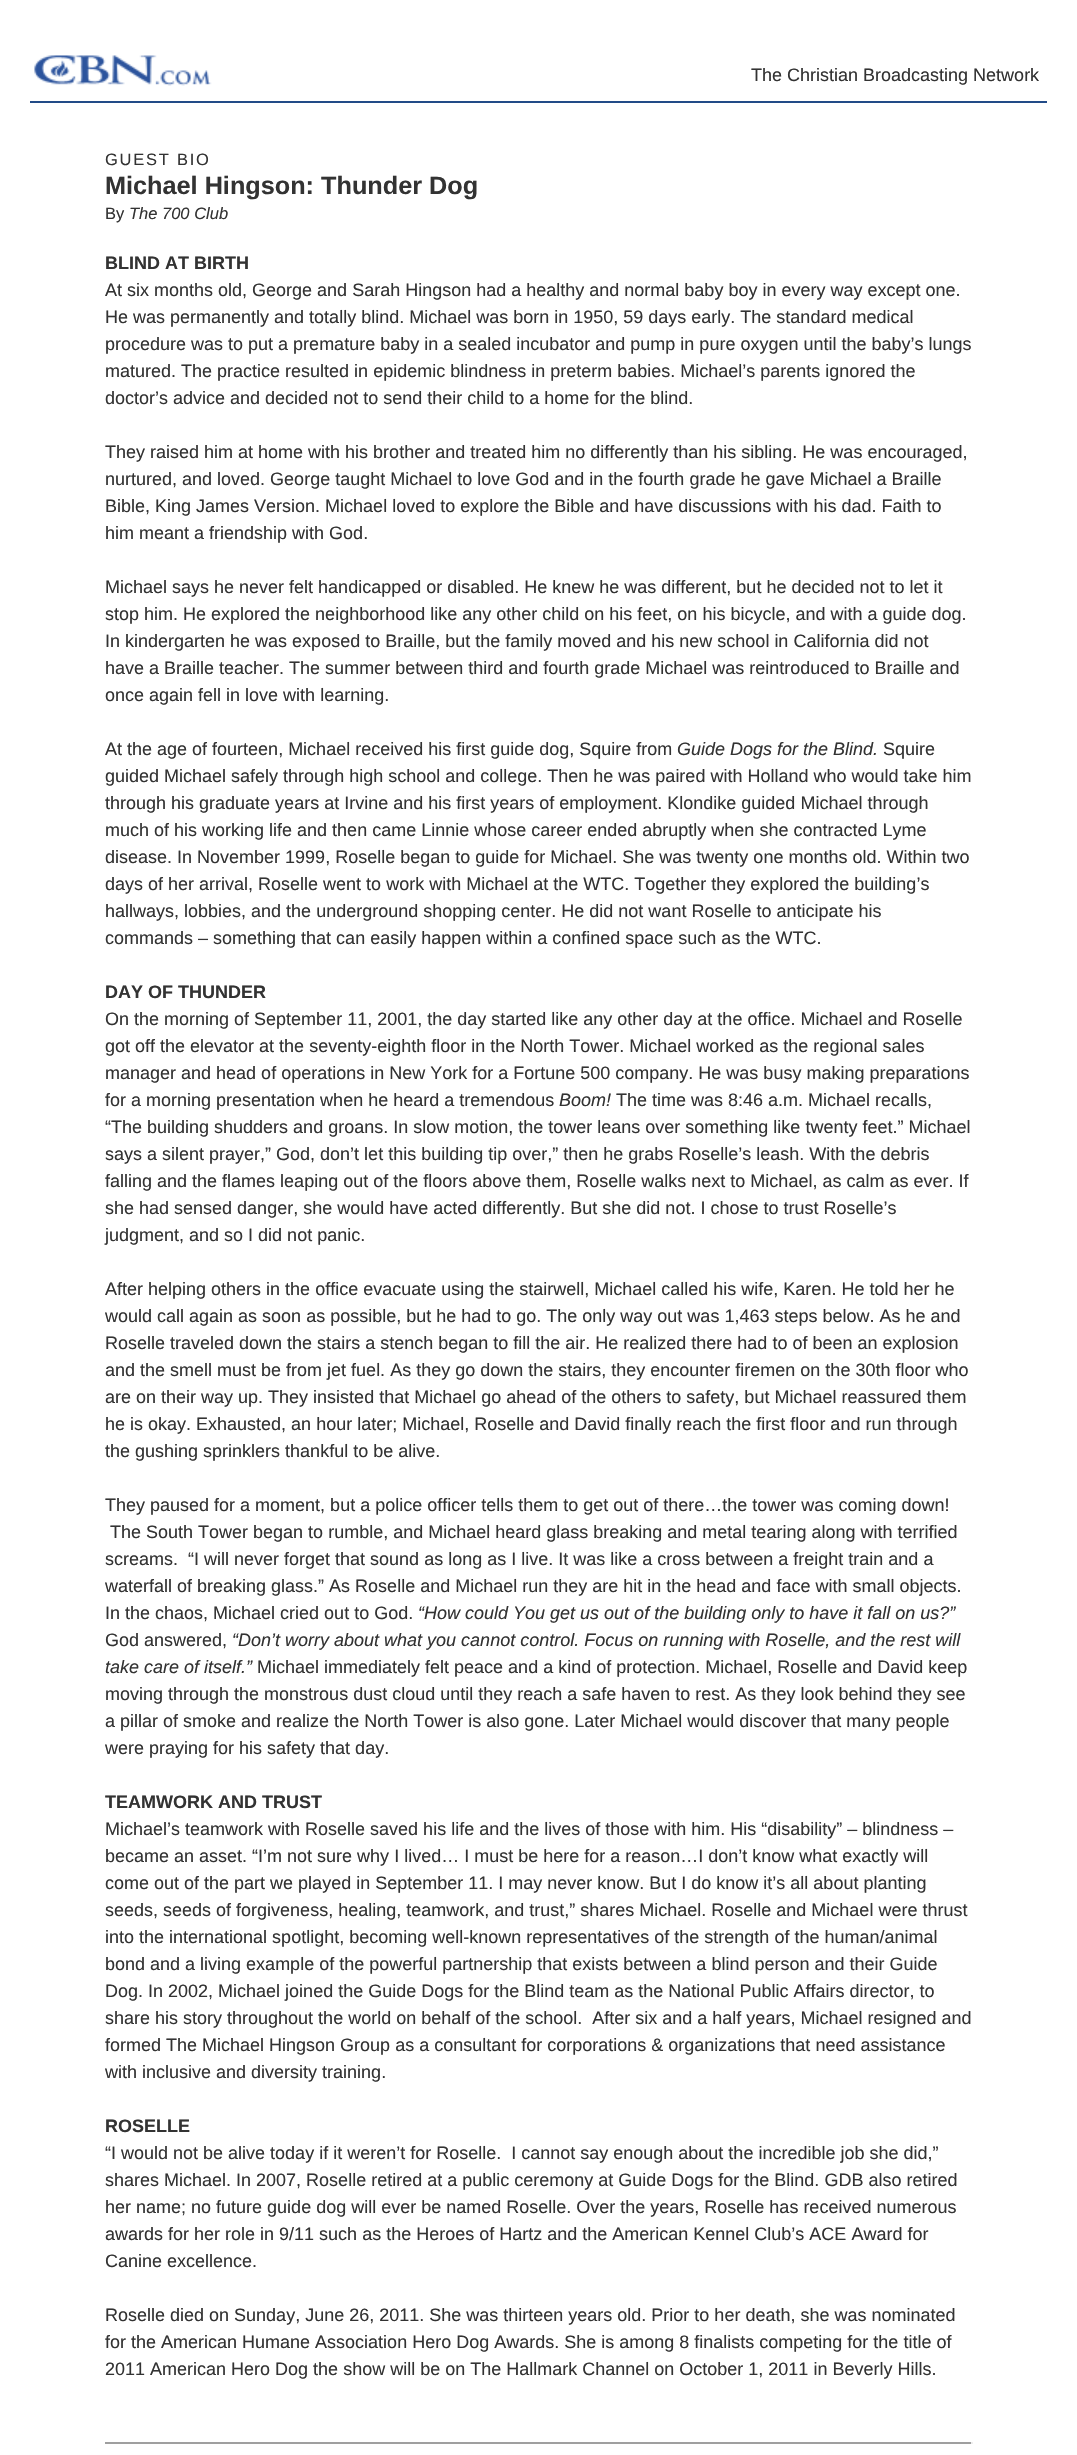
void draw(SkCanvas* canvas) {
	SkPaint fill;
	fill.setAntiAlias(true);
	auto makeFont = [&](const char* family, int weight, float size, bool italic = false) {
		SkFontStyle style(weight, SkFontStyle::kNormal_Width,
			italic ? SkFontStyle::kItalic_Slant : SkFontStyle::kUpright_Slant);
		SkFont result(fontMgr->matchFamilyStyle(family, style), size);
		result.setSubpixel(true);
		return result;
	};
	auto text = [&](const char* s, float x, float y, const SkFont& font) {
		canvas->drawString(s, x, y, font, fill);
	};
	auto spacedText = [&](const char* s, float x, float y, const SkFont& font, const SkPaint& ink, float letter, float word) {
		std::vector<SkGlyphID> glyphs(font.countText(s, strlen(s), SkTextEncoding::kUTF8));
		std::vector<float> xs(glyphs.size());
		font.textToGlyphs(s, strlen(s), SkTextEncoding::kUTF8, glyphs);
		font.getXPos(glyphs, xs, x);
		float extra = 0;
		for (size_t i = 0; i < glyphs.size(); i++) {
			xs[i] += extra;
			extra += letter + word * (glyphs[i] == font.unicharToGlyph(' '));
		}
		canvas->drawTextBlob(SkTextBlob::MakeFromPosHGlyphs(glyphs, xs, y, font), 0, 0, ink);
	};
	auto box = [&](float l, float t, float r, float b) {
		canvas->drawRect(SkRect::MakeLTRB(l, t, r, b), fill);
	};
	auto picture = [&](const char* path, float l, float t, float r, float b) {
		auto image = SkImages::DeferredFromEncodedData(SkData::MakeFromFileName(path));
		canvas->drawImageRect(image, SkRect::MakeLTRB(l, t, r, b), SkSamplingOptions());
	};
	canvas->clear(0xFFFFFFFF);
	fill.setColor(0xFF224B87);
	box(30, 101, 1047, 103);
	picture("image0.png", 34, 55, 212, 86);
	fill.setColor(0xFF9F9F9F);
	box(105, 2442, 972, 2444);
	fill.setColor(0xFFEEEEEE);
	box(971, 2442, 973, 2444);
	auto font1 = makeFont("Liberation Sans", 400, 18);
	fill.setColor(0xFF333333);
	text("The Christian Broadcasting Network", 751, 81, font1);
	auto font2 = makeFont("Liberation Sans", 400, 16.5f);
	spacedText("GUEST BIO", 105, 165, font2, fill, 1.75f, 0);
	auto font3 = makeFont("Liberation Sans", 700, 25.25f);
	text("Michael Hingson: Thunder Dog", 105, 194, font3);
	text("By", 105, 219, font2);
	auto font4 = makeFont("Liberation Sans", 400, 16.5f, true);
	text("The 700 Club", 129, 219, font4);
	auto font5 = makeFont("Liberation Sans", 700, 18);
	text("BLIND AT BIRTH", 105, 269, font5);
	text("At six months old, George and Sarah Hingson had a healthy and normal baby boy in every way except one.", 105, 296, font1);
	text("He was permanently and totally blind. Michael was born in 1950, 59 days early. The standard medical", 105, 323, font1);
	text("procedure was to put a premature baby in a sealed incubator and pump in pure oxygen until the baby’s lungs", 105, 350, font1);
	text("matured. The practice resulted in epidemic blindness in preterm babies. Michael’s parents ignored the", 105, 377, font1);
	text("doctor’s advice and decided not to send their child to a home for the blind.", 105, 404, font1);
	text("They raised him at home with his brother and treated him no differently than his sibling. He was encouraged,", 105, 458, font1);
	text("nurtured, and loved. George taught Michael to love God and in the fourth grade he gave Michael a Braille", 105, 485, font1);
	text("Bible, King James Version. Michael loved to explore the Bible and have discussions with his dad. Faith to", 105, 512, font1);
	text("him meant a friendship with God.", 105, 539, font1);
	text("Michael says he never felt handicapped or disabled. He knew he was different, but he decided not to let it", 105, 593, font1);
	text("stop him. He explored the neighborhood like any other child on his feet, on his bicycle, and with a guide dog.", 105, 620, font1);
	text("In kindergarten he was exposed to Braille, but the family moved and his new school in California did not", 105, 647, font1);
	text("have a Braille teacher. The summer between third and fourth grade Michael was reintroduced to Braille and", 105, 674, font1);
	text("once again fell in love with learning.", 105, 701, font1);
	text("At the age of fourteen, Michael received his first guide dog, Squire from", 105, 755, font1);
	auto font6 = makeFont("Liberation Sans", 400, 18, true);
	text("Guide Dogs for the Blind.", 677, 755, font6);
	text("Squire", 883, 755, font1);
	text("guided Michael safely through high school and college. Then he was paired with Holland who would take him", 105, 782, font1);
	text("through his graduate years at Irvine and his first years of employment. Klondike guided Michael through", 105, 809, font1);
	text("much of his working life and then came Linnie whose career ended abruptly when she contracted Lyme", 105, 836, font1);
	text("disease. In November 1999, Roselle began to guide for Michael. She was twenty one months old. Within two", 105, 863, font1);
	text("days of her arrival, Roselle went to work with Michael at the WTC. Together they explored the building’s", 105, 890, font1);
	text("hallways, lobbies, and the underground shopping center. He did not want Roselle to anticipate his", 105, 917, font1);
	text("commands – something that can easily happen within a confined space such as the WTC.", 105, 944, font1);
	text("DAY OF THUNDER", 105, 998, font5);
	text("On the morning of September 11, 2001, the day started like any other day at the office. Michael and Roselle", 105, 1025, font1);
	text("got off the elevator at the seventy-eighth floor in the North Tower. Michael worked as the regional sales", 105, 1052, font1);
	text("manager and head of operations in New York for a Fortune 500 company. He was busy making preparations", 105, 1079, font1);
	text("for a morning presentation when he heard a tremendous", 105, 1106, font1);
	text("Boom!", 559, 1106, font6);
	text("The time was 8:46 a.m. Michael recalls,", 616, 1106, font1);
	text("“The building shudders and groans. In slow motion, the tower leans over something like twenty feet.” Michael", 105, 1133, font1);
	text("says a silent prayer,” God, don’t let this building tip over,” then he grabs Roselle’s leash. With the debris", 105, 1160, font1);
	text("falling and the flames leaping out of the floors above them, Roselle walks next to Michael, as calm as ever. If", 105, 1187, font1);
	text("she had sensed danger, she would have acted differently. But she did not. I chose to trust Roselle’s", 105, 1214, font1);
	text("judgment, and so I did not panic.", 105, 1241, font1);
	text("After helping others in the office evacuate using the stairwell, Michael called his wife, Karen. He told her he", 105, 1295, font1);
	text("would call again as soon as possible, but he had to go. The only way out was 1,463 steps below. As he and", 105, 1322, font1);
	text("Roselle traveled down the stairs a stench began to fill the air. He realized there had to of been an explosion", 105, 1349, font1);
	text("and the smell must be from jet fuel. As they go down the stairs, they encounter firemen on the 30th floor who", 105, 1376, font1);
	text("are on their way up. They insisted that Michael go ahead of the others to safety, but Michael reassured them", 105, 1403, font1);
	text("he is okay. Exhausted, an hour later; Michael, Roselle and David finally reach the first floor and run through", 105, 1430, font1);
	text("the gushing sprinklers thankful to be alive.", 105, 1457, font1);
	text("They paused for a moment, but a police officer tells them to get out of there…the tower was coming down!", 105, 1511, font1);
	text("The South Tower began to rumble, and Michael heard glass breaking and metal tearing along with terrified", 110, 1538, font1);
	text("screams.  “I will never forget that sound as long as I live. It was like a cross between a freight train and a", 105, 1565, font1);
	text("waterfall of breaking glass.” As Roselle and Michael run they are hit in the head and face with small objects.", 105, 1592, font1);
	text("In the chaos, Michael cried out to God.", 105, 1619, font1);
	text("“How could You get us out of the building only to have it fall on us?”", 418, 1619, font6);
	text("God answered,", 105, 1646, font1);
	text("“Don’t worry about what you cannot control. Focus on running with Roselle, and the rest will", 232, 1646, font6);
	text("take care of itself.”", 105, 1673, font6);
	text("Michael immediately felt peace and a kind of protection. Michael, Roselle and David keep", 257, 1673, font1);
	text("moving through the monstrous dust cloud until they reach a safe haven to rest. As they look behind they see", 105, 1700, font1);
	text("a pillar of smoke and realize the North Tower is also gone. Later Michael would discover that many people", 105, 1727, font1);
	text("were praying for his safety that day.", 105, 1754, font1);
	text("TEAMWORK AND TRUST", 105, 1808, font5);
	text("Michael’s teamwork with Roselle saved his life and the lives of those with him. His “disability” – blindness –", 105, 1835, font1);
	text("became an asset. “I’m not sure why I lived… I must be here for a reason…I don’t know what exactly will", 105, 1862, font1);
	text("come out of the part we played in September 11. I may never know. But I do know it’s all about planting", 105, 1889, font1);
	text("seeds, seeds of forgiveness, healing, teamwork, and trust,” shares Michael. Roselle and Michael were thrust", 105, 1916, font1);
	text("into the international spotlight, becoming well-known representatives of the strength of the human/animal", 105, 1943, font1);
	text("bond and a living example of the powerful partnership that exists between a blind person and their Guide", 105, 1970, font1);
	text("Dog. In 2002, Michael joined the Guide Dogs for the Blind team as the National Public Affairs director, to", 105, 1997, font1);
	text("share his story throughout the world on behalf of the school.  After six and a half years, Michael resigned and", 105, 2024, font1);
	text("formed The Michael Hingson Group as a consultant for corporations & organizations that need assistance", 105, 2051, font1);
	text("with inclusive and diversity training.", 105, 2078, font1);
	text("ROSELLE", 105, 2132, font5);
	text("“I would not be alive today if it weren’t for Roselle.  I cannot say enough about the incredible job she did,”", 105, 2159, font1);
	text("shares Michael. In 2007, Roselle retired at a public ceremony at Guide Dogs for the Blind. GDB also retired", 105, 2186, font1);
	text("her name; no future guide dog will ever be named Roselle. Over the years, Roselle has received numerous", 105, 2213, font1);
	text("awards for her role in 9/11 such as the Heroes of Hartz and the American Kennel Club’s ACE Award for", 105, 2240, font1);
	text("Canine excellence.", 105, 2267, font1);
	text("Roselle died on Sunday, June 26, 2011. She was thirteen years old. Prior to her death, she was nominated", 105, 2321, font1);
	text("for the American Humane Association Hero Dog Awards. She is among 8 finalists competing for the title of", 105, 2348, font1);
	text("2011 American Hero Dog the show will be on The Hallmark Channel on October 1, 2011 in Beverly Hills.", 105, 2375, font1);
}
